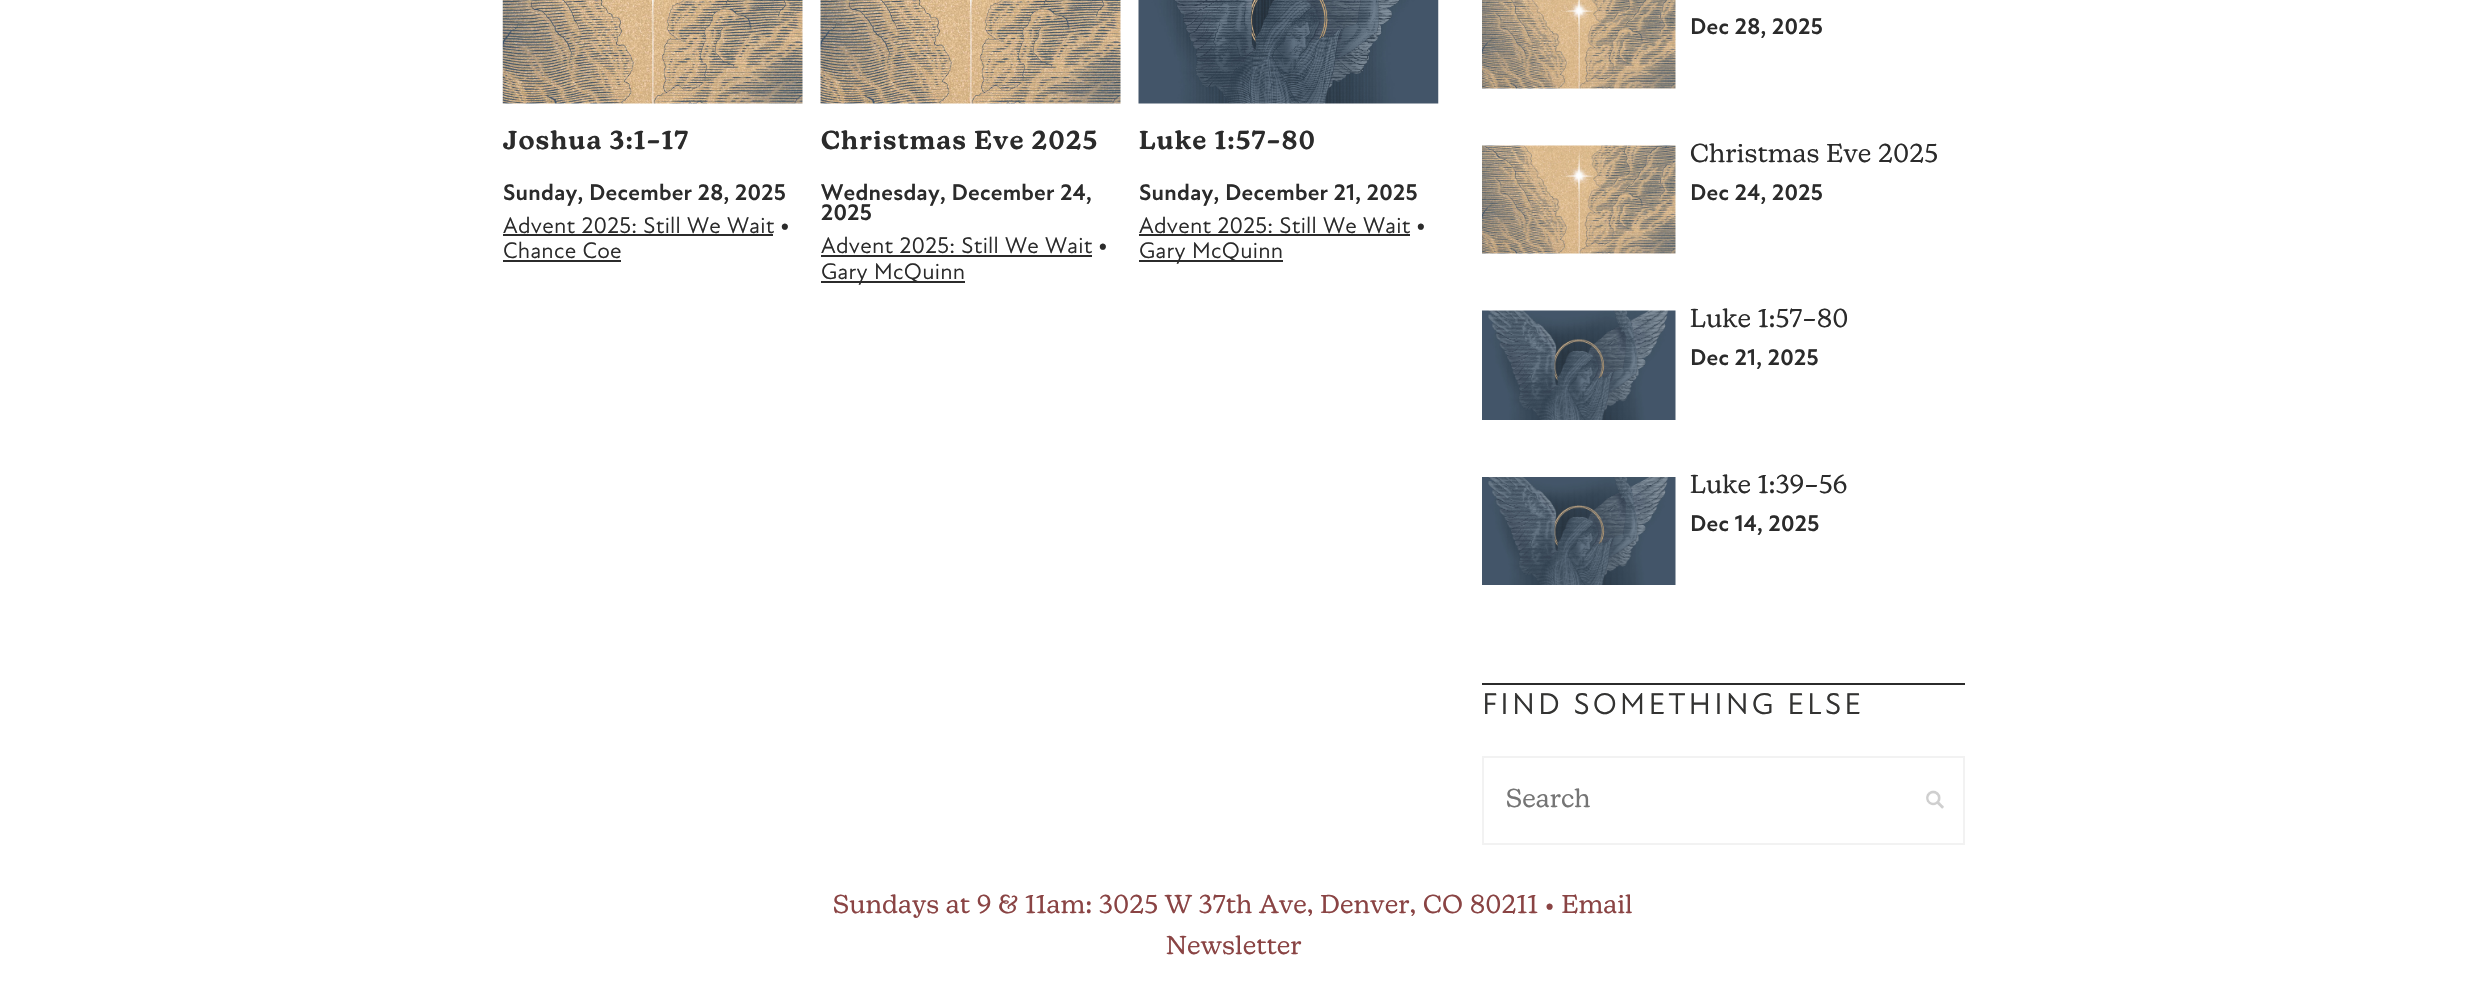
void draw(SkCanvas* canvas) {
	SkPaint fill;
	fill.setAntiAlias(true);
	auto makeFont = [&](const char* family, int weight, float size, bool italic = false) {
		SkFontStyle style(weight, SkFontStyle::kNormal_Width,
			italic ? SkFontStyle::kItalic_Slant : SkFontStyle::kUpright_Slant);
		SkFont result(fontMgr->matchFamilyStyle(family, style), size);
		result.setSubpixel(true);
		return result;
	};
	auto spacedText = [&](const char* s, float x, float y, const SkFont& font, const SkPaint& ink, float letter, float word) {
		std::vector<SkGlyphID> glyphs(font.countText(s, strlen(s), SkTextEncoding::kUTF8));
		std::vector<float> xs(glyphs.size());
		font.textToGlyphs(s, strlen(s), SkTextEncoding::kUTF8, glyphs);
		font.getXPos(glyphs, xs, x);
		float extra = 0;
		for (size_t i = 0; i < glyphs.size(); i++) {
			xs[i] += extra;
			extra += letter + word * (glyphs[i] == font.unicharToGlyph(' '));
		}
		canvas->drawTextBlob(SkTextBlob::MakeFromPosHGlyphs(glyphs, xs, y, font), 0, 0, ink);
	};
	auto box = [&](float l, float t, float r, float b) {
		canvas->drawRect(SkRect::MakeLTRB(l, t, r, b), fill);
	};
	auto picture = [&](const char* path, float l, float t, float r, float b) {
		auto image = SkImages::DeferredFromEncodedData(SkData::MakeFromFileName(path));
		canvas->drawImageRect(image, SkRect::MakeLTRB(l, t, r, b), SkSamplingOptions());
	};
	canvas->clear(0xFFFFFFFF);
	picture("image0.png", 502, 0, 803, 104);
	fill.setColor(0xFF2B2B2B);
	box(503, 234, 773, 236);
	box(503, 260, 621, 262);
	picture("image1.png", 820, 0, 1121, 104);
	box(821, 255, 1092, 257);
	box(821, 281, 965, 283);
	picture("image2.png", 1138, 0, 1439, 104);
	box(1139, 234, 1410, 236);
	box(1139, 260, 1283, 262);
	picture("image3.png", 1482, 0, 1676, 89);
	picture("image4.png", 1482, 145, 1676, 254);
	picture("image5.png", 1482, 310, 1676, 420);
	picture("image6.png", 1482, 477, 1676, 585);
	box(1482, 683, 1965, 685);
	fill.setStyle(SkPaint::kStroke_Style);
	fill.setStrokeWidth(2);
	fill.setColor(0xFFF2F2F2);
	canvas->drawRect(SkRect::MakeLTRB(1483, 757, 1964, 844), fill);
	picture("image7.png", 1926, 790, 1944, 809);
	canvas->save();
	canvas->clipRect(SkRect::MakeLTRB(503, 0, 1439, 330));
	auto font1 = makeFont("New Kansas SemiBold", 600, 25.5f);
	fill.setStyle(SkPaint::kFill_Style);
	fill.setColor(0xFF2B2B2B);
	spacedText("Joshua 3:1–17", 503, 149, font1, fill, 1.5f, 0);
	canvas->restore();
	auto font2 = makeFont("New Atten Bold", 700, 23);
	spacedText("Sunday, December 28, 2025", 503, 200, font2, fill, 0.25f, 0);
	auto font3 = makeFont("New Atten", 400, 23);
	spacedText("Advent 2025: Still We Wait", 503, 233, font3, fill, 0.25f, 0);
	auto font4 = makeFont("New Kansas", 400, 25.5f);
	spacedText("•", 780, 233, font4, fill, 0.5f, 0);
	spacedText("Chance Coe", 503, 258, font3, fill, 0.25f, 0);
	spacedText("Christmas Eve 2025", 821, 149, font1, fill, 1.5f, 0);
	spacedText("Wednesday, December 24,", 821, 200, font2, fill, 0.25f, 0);
	spacedText("2025", 821, 220, font2, fill, 0.25f, 0);
	spacedText("Advent 2025: Still We Wait", 821, 253, font3, fill, 0.25f, 0);
	spacedText("•", 1098, 253, font4, fill, 0.5f, 0);
	spacedText("Gary McQuinn", 821, 279, font3, fill, 0.25f, 0);
	spacedText("Luke 1:57–80", 1139, 149, font1, fill, 1.5f, 0);
	spacedText("Sunday, December 21, 2025", 1139, 200, font2, fill, 0.25f, 0);
	spacedText("Advent 2025: Still We Wait", 1139, 233, font3, fill, 0.25f, 0);
	spacedText("•", 1416, 233, font4, fill, 0.5f, 0);
	spacedText("Gary McQuinn", 1139, 258, font3, fill, 0.25f, 0);
	spacedText("Dec 28, 2025", 1690, 34, font2, fill, 0.25f, 0);
	spacedText("Christmas Eve 2025", 1690, 162, font4, fill, 0.5f, 0);
	spacedText("Dec 24, 2025", 1690, 200, font2, fill, 0.25f, 0);
	spacedText("Luke 1:57–80", 1690, 327, font4, fill, 0.5f, 0);
	spacedText("Dec 21, 2025", 1690, 365, font2, fill, 0.25f, 0);
	spacedText("Luke 1:39–56", 1690, 493, font4, fill, 0.5f, 0);
	spacedText("Dec 14, 2025", 1690, 531, font2, fill, 0.25f, 0);
	auto font5 = makeFont("New Atten", 400, 30.6f);
	fill.setColor(0xFF333332);
	spacedText("FIND SOMETHING ELSE", 1482, 714, font5, fill, 3.1f, 0);
	fill.setColor(0xFF757575);
	spacedText("Search", 1506, 807, font4, fill, 0.5f, 0);
	fill.setColor(0xFF8A4444);
	spacedText("Sundays at 9 & 11am: 3025 W 37th Ave, Denver, CO 80211 • Email", 833, 913, font4, fill, 0.5f, 0);
	spacedText("Newsletter", 1166, 954, font4, fill, 0.5f, 0);
}
